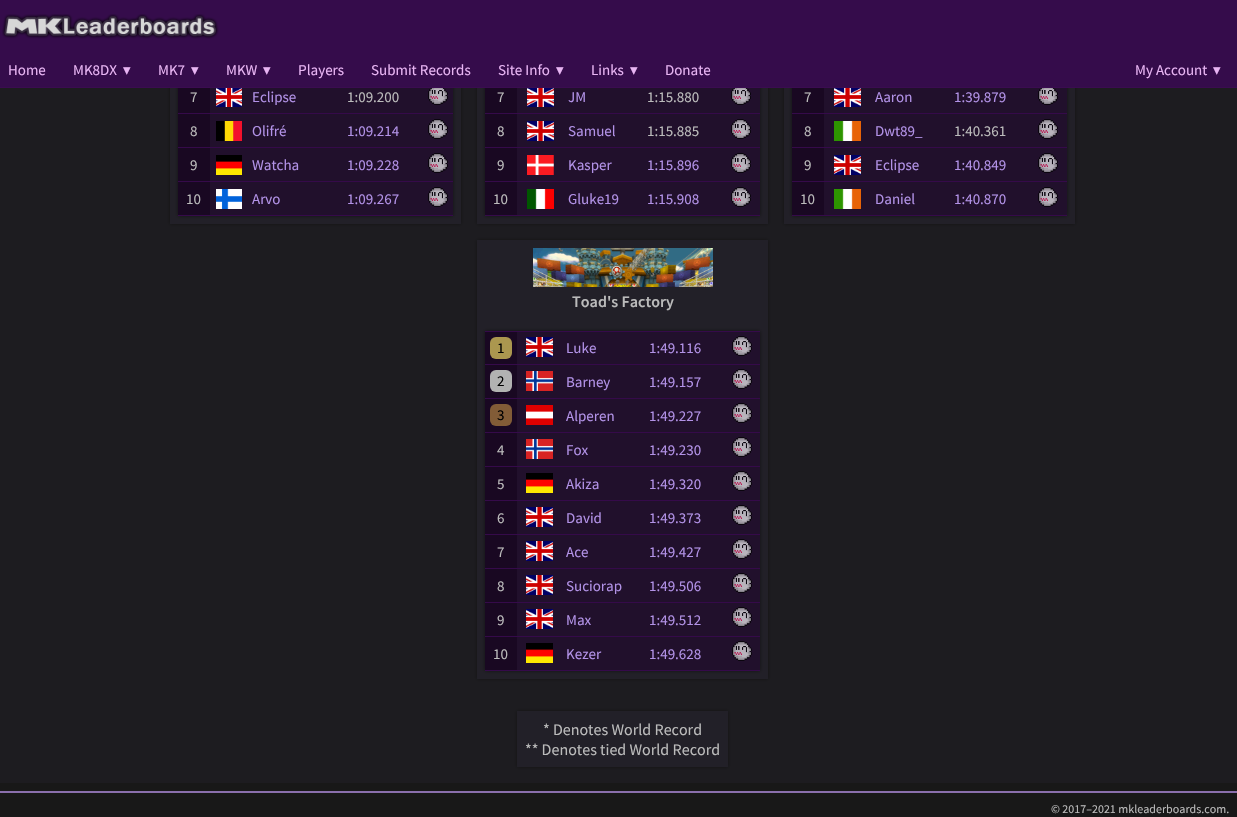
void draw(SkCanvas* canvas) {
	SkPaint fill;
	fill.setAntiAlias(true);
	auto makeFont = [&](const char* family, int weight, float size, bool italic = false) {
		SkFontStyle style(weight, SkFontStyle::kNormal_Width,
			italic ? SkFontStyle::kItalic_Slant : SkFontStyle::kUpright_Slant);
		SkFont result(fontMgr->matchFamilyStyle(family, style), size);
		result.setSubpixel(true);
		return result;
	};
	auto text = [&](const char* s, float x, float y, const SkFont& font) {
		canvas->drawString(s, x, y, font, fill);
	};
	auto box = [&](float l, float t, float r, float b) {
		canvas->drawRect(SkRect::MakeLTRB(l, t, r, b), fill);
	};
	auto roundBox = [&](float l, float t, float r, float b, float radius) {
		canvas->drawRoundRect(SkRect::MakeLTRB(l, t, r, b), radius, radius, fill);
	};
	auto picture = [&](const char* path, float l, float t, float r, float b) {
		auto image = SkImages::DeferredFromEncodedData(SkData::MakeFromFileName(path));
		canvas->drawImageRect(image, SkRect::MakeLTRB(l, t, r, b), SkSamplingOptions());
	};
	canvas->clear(0xFF181818);
	fill.setColor(0xFF1D1C20);
	box(0, 88, 1237, 783);
	fill.setColor(0xFF111111);
	fill.setMaskFilter(SkMaskFilter::MakeBlur(kNormal_SkBlurStyle, 2));
	canvas->drawRect(SkRect::MakeLTRB(170, -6, 461, 224), fill);
	fill.setMaskFilter(nullptr);
	fill.setColor(0xFF222028);
	box(170, 88, 461, 224);
	fill.setColor(0xFF111111);
	fill.setMaskFilter(SkMaskFilter::MakeBlur(kNormal_SkBlurStyle, 2));
	canvas->drawRect(SkRect::MakeLTRB(178, -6, 453, 216), fill);
	fill.setMaskFilter(nullptr);
	fill.setMaskFilter(SkMaskFilter::MakeBlur(kNormal_SkBlurStyle, 2));
	canvas->drawRect(SkRect::MakeLTRB(477, -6, 768, 224), fill);
	fill.setMaskFilter(nullptr);
	fill.setColor(0xFF222028);
	box(477, 88, 768, 224);
	fill.setColor(0xFF111111);
	fill.setMaskFilter(SkMaskFilter::MakeBlur(kNormal_SkBlurStyle, 2));
	canvas->drawRect(SkRect::MakeLTRB(485, -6, 760, 216), fill);
	fill.setMaskFilter(nullptr);
	fill.setMaskFilter(SkMaskFilter::MakeBlur(kNormal_SkBlurStyle, 2));
	canvas->drawRect(SkRect::MakeLTRB(784, -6, 1075, 224), fill);
	fill.setMaskFilter(nullptr);
	fill.setColor(0xFF222028);
	box(784, 88, 1075, 224);
	fill.setColor(0xFF111111);
	fill.setMaskFilter(SkMaskFilter::MakeBlur(kNormal_SkBlurStyle, 2));
	canvas->drawRect(SkRect::MakeLTRB(792, -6, 1067, 216), fill);
	fill.setMaskFilter(nullptr);
	fill.setColor(0xFF350C4B);
	box(0, 0, 1237, 87);
	picture("image0.png", 2, 14, 219, 39);
	fill.setColor(0xFF3B0C51);
	box(0, 87, 1237, 88);
	fill.setColor(0xFF21102C);
	box(210, 88, 453, 215);
	fill.setColor(0xFF190822);
	box(178, 88, 210, 113);
	fill.setColor(0xFF350A4A);
	box(178, 113, 453, 114);
	picture("image1.png", 216, 88, 242, 107);
	picture("image2.png", 428, 88, 448, 105);
	fill.setColor(0xFF190822);
	box(178, 114, 210, 147);
	fill.setColor(0xFF350A4A);
	box(178, 147, 453, 148);
	picture("image3.png", 216, 121, 242, 141);
	picture("image4.png", 428, 119, 448, 139);
	fill.setColor(0xFF190822);
	box(178, 148, 210, 181);
	fill.setColor(0xFF350A4A);
	box(178, 181, 453, 182);
	picture("image5.png", 216, 155, 242, 175);
	picture("image4.png", 428, 153, 448, 173);
	fill.setColor(0xFF190822);
	box(178, 182, 210, 215);
	fill.setColor(0xFF350A4A);
	box(178, 215, 453, 216);
	picture("image6.png", 216, 189, 242, 209);
	picture("image4.png", 428, 187, 448, 207);
	fill.setColor(0xFF21102C);
	box(517, 88, 760, 215);
	fill.setColor(0xFF190822);
	box(485, 88, 517, 113);
	fill.setColor(0xFF350A4A);
	box(485, 113, 760, 114);
	picture("image7.png", 527, 88, 554, 107);
	picture("image8.png", 731, 88, 751, 105);
	fill.setColor(0xFF190822);
	box(485, 114, 517, 147);
	fill.setColor(0xFF350A4A);
	box(485, 147, 760, 148);
	picture("image9.png", 527, 121, 554, 141);
	picture("image10.png", 731, 119, 751, 139);
	fill.setColor(0xFF190822);
	box(485, 148, 517, 181);
	fill.setColor(0xFF350A4A);
	box(485, 181, 760, 182);
	picture("image11.png", 527, 155, 554, 175);
	picture("image10.png", 731, 153, 751, 173);
	fill.setColor(0xFF190822);
	box(485, 182, 517, 215);
	fill.setColor(0xFF350A4A);
	box(485, 215, 760, 216);
	picture("image12.png", 527, 189, 554, 209);
	picture("image10.png", 731, 187, 751, 207);
	fill.setColor(0xFF21102C);
	box(824, 88, 1067, 215);
	fill.setColor(0xFF190822);
	box(792, 88, 824, 113);
	fill.setColor(0xFF350A4A);
	box(792, 113, 1067, 114);
	picture("image7.png", 834, 88, 861, 107);
	picture("image8.png", 1038, 88, 1058, 105);
	fill.setColor(0xFF190822);
	box(792, 114, 824, 147);
	fill.setColor(0xFF350A4A);
	box(792, 147, 1067, 148);
	picture("image13.png", 834, 121, 861, 141);
	picture("image10.png", 1038, 119, 1058, 139);
	fill.setColor(0xFF190822);
	box(792, 148, 824, 181);
	fill.setColor(0xFF350A4A);
	box(792, 181, 1067, 182);
	picture("image9.png", 834, 155, 861, 175);
	picture("image10.png", 1038, 153, 1058, 173);
	fill.setColor(0xFF190822);
	box(792, 182, 824, 215);
	fill.setColor(0xFF350A4A);
	box(792, 215, 1067, 216);
	picture("image13.png", 834, 189, 861, 209);
	picture("image10.png", 1038, 187, 1058, 207);
	fill.setColor(0xFF111111);
	fill.setMaskFilter(SkMaskFilter::MakeBlur(kNormal_SkBlurStyle, 2));
	canvas->drawRect(SkRect::MakeLTRB(477, 240, 768, 679), fill);
	fill.setMaskFilter(nullptr);
	fill.setColor(0xFF222028);
	box(477, 240, 768, 679);
	picture("image14.png", 533, 248, 713, 287);
	fill.setColor(0xFF111111);
	fill.setMaskFilter(SkMaskFilter::MakeBlur(kNormal_SkBlurStyle, 2));
	canvas->drawRect(SkRect::MakeLTRB(485, 331, 760, 671), fill);
	fill.setMaskFilter(nullptr);
	fill.setColor(0xFF21102C);
	box(517, 332, 760, 670);
	fill.setColor(0xFF190822);
	box(485, 332, 517, 364);
	fill.setColor(0xFF350A4A);
	box(485, 331, 760, 332);
	box(485, 364, 760, 365);
	fill.setColor(0xFFAB974F);
	roundBox(490, 337, 512, 359, 6);
	picture("image15.png", 526, 337, 553, 357);
	picture("image16.png", 732, 336, 752, 356);
	fill.setColor(0xFF190822);
	box(485, 365, 517, 398);
	fill.setColor(0xFF350A4A);
	box(485, 398, 760, 399);
	fill.setColor(0xFFB2B2B2);
	roundBox(490, 370, 512, 392, 6);
	picture("image17.png", 526, 371, 553, 391);
	picture("image4.png", 732, 369, 752, 389);
	fill.setColor(0xFF190822);
	box(485, 399, 517, 432);
	fill.setColor(0xFF350A4A);
	box(485, 432, 760, 433);
	fill.setColor(0xFF825C37);
	roundBox(490, 404, 512, 426, 6);
	picture("image18.png", 526, 405, 553, 425);
	picture("image4.png", 732, 403, 752, 423);
	fill.setColor(0xFF190822);
	box(485, 433, 517, 466);
	fill.setColor(0xFF350A4A);
	box(485, 466, 760, 467);
	picture("image17.png", 526, 439, 553, 459);
	picture("image4.png", 732, 437, 752, 457);
	fill.setColor(0xFF190822);
	box(485, 467, 517, 500);
	fill.setColor(0xFF350A4A);
	box(485, 500, 760, 501);
	picture("image19.png", 526, 473, 553, 493);
	picture("image4.png", 732, 471, 752, 491);
	fill.setColor(0xFF190822);
	box(485, 501, 517, 534);
	fill.setColor(0xFF350A4A);
	box(485, 534, 760, 535);
	picture("image9.png", 526, 507, 553, 527);
	picture("image4.png", 732, 505, 752, 525);
	fill.setColor(0xFF190822);
	box(485, 535, 517, 568);
	fill.setColor(0xFF350A4A);
	box(485, 568, 760, 569);
	picture("image9.png", 526, 541, 553, 561);
	picture("image4.png", 732, 539, 752, 559);
	fill.setColor(0xFF190822);
	box(485, 569, 517, 602);
	fill.setColor(0xFF350A4A);
	box(485, 602, 760, 603);
	picture("image20.png", 526, 575, 553, 595);
	picture("image4.png", 732, 573, 752, 593);
	fill.setColor(0xFF190822);
	box(485, 603, 517, 636);
	fill.setColor(0xFF350A4A);
	box(485, 636, 760, 637);
	picture("image9.png", 526, 609, 553, 629);
	picture("image4.png", 732, 607, 752, 627);
	fill.setColor(0xFF190822);
	box(485, 637, 517, 670);
	fill.setColor(0xFF350A4A);
	box(485, 670, 760, 671);
	picture("image21.png", 526, 643, 553, 663);
	picture("image4.png", 732, 641, 752, 661);
	fill.setColor(0xFF111111);
	fill.setMaskFilter(SkMaskFilter::MakeBlur(kNormal_SkBlurStyle, 2));
	canvas->drawRect(SkRect::MakeLTRB(517, 711, 728, 767), fill);
	fill.setMaskFilter(nullptr);
	fill.setColor(0xFF222028);
	box(517, 711, 728, 767);
	fill.setColor(0xFF8A6FAC);
	box(0, 791, 1237, 793);
	auto font1 = makeFont("Source Sans Pro", 400, 15);
	fill.setColor(0xFFE8B5F3);
	text("Home", 8, 75, font1);
	text("MK8DX", 73, 75, font1);
	auto font2 = makeFont("DejaVu Sans", 400, 15);
	text("▾", 123, 75, font2);
	text("MK7", 158, 75, font1);
	text("▾", 191, 75, font2);
	text("MKW", 226, 75, font1);
	text("▾", 263, 75, font2);
	text("Players", 298, 75, font1);
	text("Submit Records", 371, 75, font1);
	text("Site Info", 498, 75, font1);
	text("▾", 556, 75, font2);
	text("Links", 591, 75, font1);
	text("▾", 630, 75, font2);
	text("Donate", 665, 75, font1);
	text("My Account", 1135, 75, font1);
	text("▾", 1213, 75, font2);
	fill.setColor(0xFFBBBBBB);
	text("7", 190, 102, font1);
	fill.setColor(0xFFB292E7);
	text("Eclipse", 252, 102, font1);
	fill.setColor(0xFFBBBBBB);
	text("1:09.200", 347, 102, font1);
	text("8", 190, 136, font1);
	fill.setColor(0xFFB292E7);
	text("Olifré", 252, 136, font1);
	text("1:09.214", 347, 136, font1);
	fill.setColor(0xFFBBBBBB);
	text("9", 190, 170, font1);
	fill.setColor(0xFFB292E7);
	text("Watcha", 252, 170, font1);
	text("1:09.228", 347, 170, font1);
	fill.setColor(0xFFBBBBBB);
	text("10", 186, 204, font1);
	fill.setColor(0xFFB292E7);
	text("Arvo", 252, 204, font1);
	text("1:09.267", 347, 204, font1);
	fill.setColor(0xFFBBBBBB);
	text("7", 497, 102, font1);
	fill.setColor(0xFFB292E7);
	text("JM", 568, 102, font1);
	fill.setColor(0xFFBBBBBB);
	text("1:15.880", 647, 102, font1);
	text("8", 497, 136, font1);
	fill.setColor(0xFFB292E7);
	text("Samuel", 568, 136, font1);
	fill.setColor(0xFFBBBBBB);
	text("1:15.885", 647, 136, font1);
	text("9", 497, 170, font1);
	fill.setColor(0xFFB292E7);
	text("Kasper", 568, 170, font1);
	text("1:15.896", 647, 170, font1);
	fill.setColor(0xFFBBBBBB);
	text("10", 493, 204, font1);
	fill.setColor(0xFFB292E7);
	text("Gluke19", 568, 204, font1);
	text("1:15.908", 647, 204, font1);
	fill.setColor(0xFFBBBBBB);
	text("7", 804, 102, font1);
	fill.setColor(0xFFB292E7);
	text("Aaron", 875, 102, font1);
	text("1:39.879", 954, 102, font1);
	fill.setColor(0xFFBBBBBB);
	text("8", 804, 136, font1);
	fill.setColor(0xFFB292E7);
	text("Dwt89_", 875, 136, font1);
	fill.setColor(0xFFBBBBBB);
	text("1:40.361", 954, 136, font1);
	text("9", 804, 170, font1);
	fill.setColor(0xFFB292E7);
	text("Eclipse", 875, 170, font1);
	text("1:40.849", 954, 170, font1);
	fill.setColor(0xFFBBBBBB);
	text("10", 800, 204, font1);
	fill.setColor(0xFFB292E7);
	text("Daniel", 875, 204, font1);
	text("1:40.870", 954, 204, font1);
	auto font3 = makeFont("Source Sans Pro", 600, 16);
	fill.setColor(0xFFBBBBBB);
	text("Toad's Factory", 572, 307, font3);
	fill.setColor(0xFF000000);
	text("1", 497, 353, font1);
	fill.setColor(0xFFB292E7);
	text("Luke", 566, 353, font1);
	text("1:49.116", 649, 353, font1);
	fill.setColor(0xFF000000);
	text("2", 497, 386, font1);
	fill.setColor(0xFFB292E7);
	text("Barney", 566, 387, font1);
	text("1:49.157", 649, 387, font1);
	fill.setColor(0xFF000000);
	text("3", 497, 420, font1);
	fill.setColor(0xFFB292E7);
	text("Alperen", 566, 421, font1);
	text("1:49.227", 649, 421, font1);
	fill.setColor(0xFFBBBBBB);
	text("4", 497, 455, font1);
	fill.setColor(0xFFB292E7);
	text("Fox", 566, 455, font1);
	text("1:49.230", 649, 455, font1);
	fill.setColor(0xFFBBBBBB);
	text("5", 497, 489, font1);
	fill.setColor(0xFFB292E7);
	text("Akiza", 566, 489, font1);
	text("1:49.320", 649, 489, font1);
	fill.setColor(0xFFBBBBBB);
	text("6", 497, 523, font1);
	fill.setColor(0xFFB292E7);
	text("David", 566, 523, font1);
	text("1:49.373", 649, 523, font1);
	fill.setColor(0xFFBBBBBB);
	text("7", 497, 557, font1);
	fill.setColor(0xFFB292E7);
	text("Ace", 566, 557, font1);
	text("1:49.427", 649, 557, font1);
	fill.setColor(0xFFBBBBBB);
	text("8", 497, 591, font1);
	fill.setColor(0xFFB292E7);
	text("Suciorap", 566, 591, font1);
	text("1:49.506", 649, 591, font1);
	fill.setColor(0xFFBBBBBB);
	text("9", 497, 625, font1);
	fill.setColor(0xFFB292E7);
	text("Max", 566, 625, font1);
	text("1:49.512", 649, 625, font1);
	fill.setColor(0xFFBBBBBB);
	text("10", 493, 659, font1);
	fill.setColor(0xFFB292E7);
	text("Kezer", 566, 659, font1);
	text("1:49.628", 649, 659, font1);
	auto font4 = makeFont("Source Sans Pro", 400, 16);
	fill.setColor(0xFFBBBBBB);
	text("* Denotes World Record", 543, 735, font4);
	text("** Denotes tied World Record", 525, 755, font4);
	auto font5 = makeFont("Source Sans Pro", 400, 12);
	text("© 2017–2021 mkleaderboards.com.", 1051, 813, font5);
}
